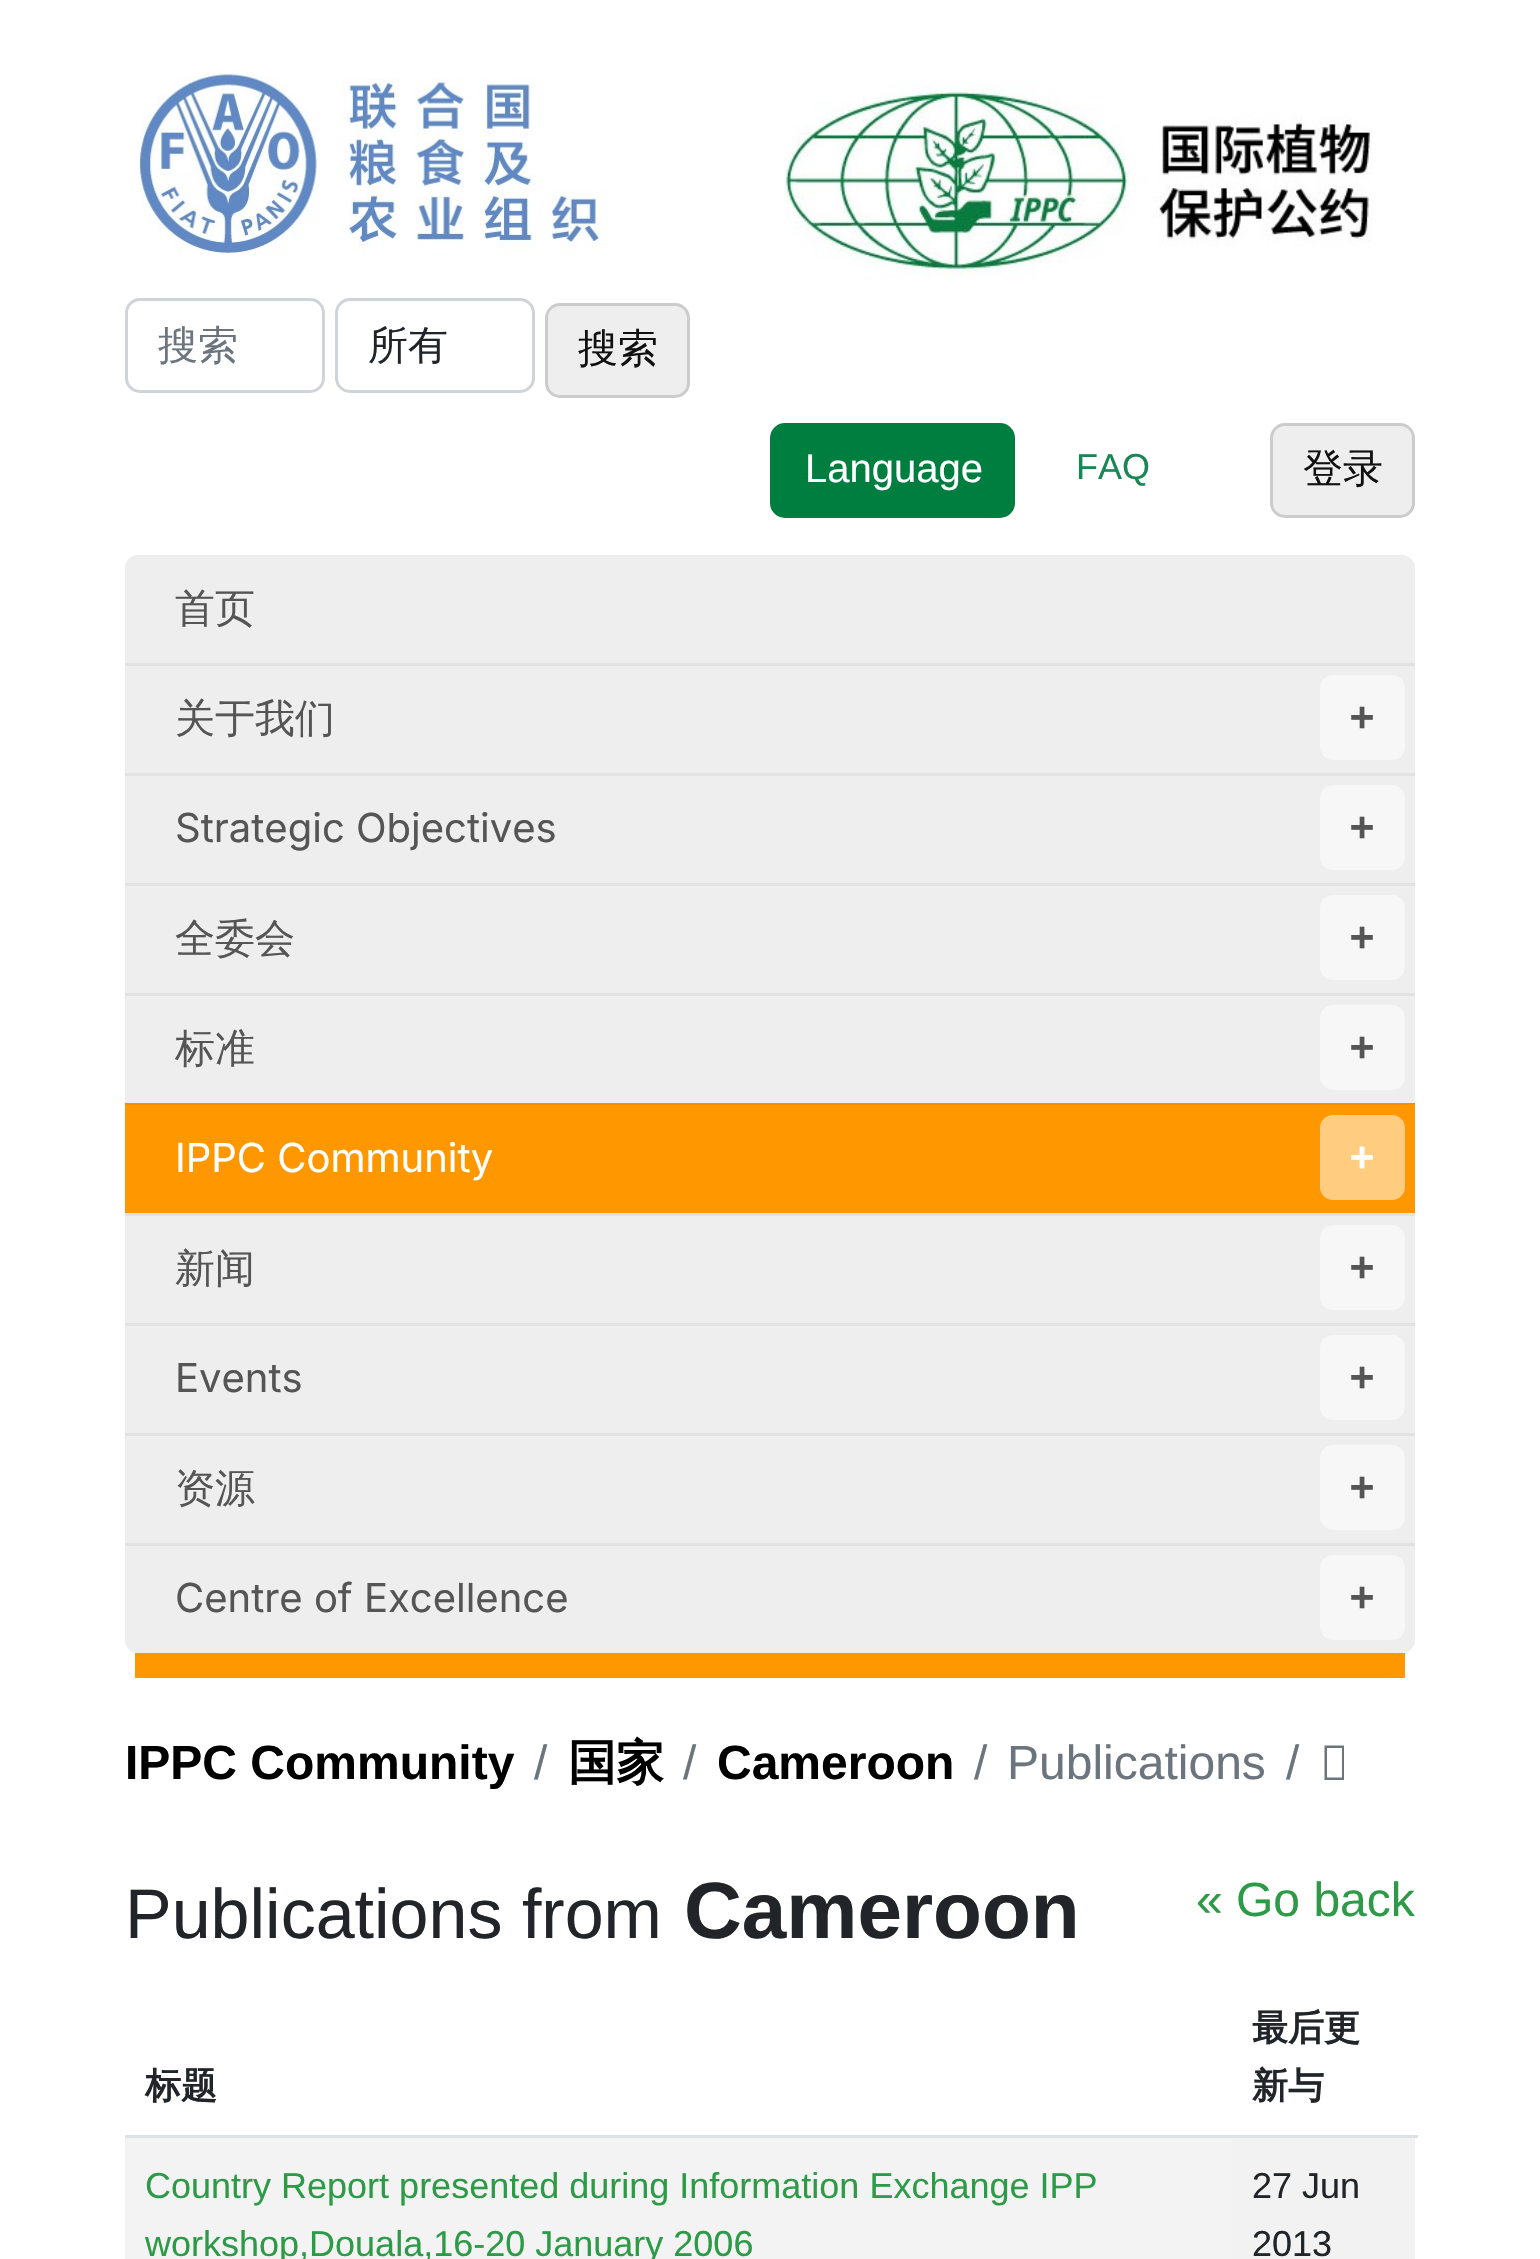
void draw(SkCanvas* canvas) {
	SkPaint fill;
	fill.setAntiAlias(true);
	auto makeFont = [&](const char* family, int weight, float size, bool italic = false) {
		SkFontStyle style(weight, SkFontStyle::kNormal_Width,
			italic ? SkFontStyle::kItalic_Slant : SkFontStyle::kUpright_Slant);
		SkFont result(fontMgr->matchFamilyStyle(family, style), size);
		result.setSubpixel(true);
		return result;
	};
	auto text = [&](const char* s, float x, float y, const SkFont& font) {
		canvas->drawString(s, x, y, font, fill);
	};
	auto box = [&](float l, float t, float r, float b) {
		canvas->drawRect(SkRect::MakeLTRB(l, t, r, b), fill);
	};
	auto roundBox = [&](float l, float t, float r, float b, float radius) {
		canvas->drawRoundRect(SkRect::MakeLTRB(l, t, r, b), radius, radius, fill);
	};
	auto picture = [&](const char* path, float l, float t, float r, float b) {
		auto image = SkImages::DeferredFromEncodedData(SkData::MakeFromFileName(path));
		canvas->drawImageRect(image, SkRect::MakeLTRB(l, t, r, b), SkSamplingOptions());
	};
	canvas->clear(0xFFFFFFFF);
	picture("image0.png", 135, 71, 609, 255);
	picture("image1.png", 784, 80, 1373, 280);
	fill.setStyle(SkPaint::kStroke_Style);
	fill.setStrokeWidth(3);
	fill.setColor(0xFFCED4DA);
	canvas->drawRoundRect(SkRect::MakeLTRB(126.5f, 299.5f, 323.5f, 391.5f), 13.5f, 13.5f, fill);
	canvas->drawRoundRect(SkRect::MakeLTRB(336.5f, 299.5f, 533.5f, 391.5f), 13.5f, 13.5f, fill);
	fill.setStyle(SkPaint::kFill_Style);
	fill.setColor(0xFFEEEEEE);
	canvas->drawRoundRect(SkRect::MakeLTRB(546.5f, 304.5f, 688.5f, 396.5f), 13.5f, 13.5f, fill);
	fill.setStyle(SkPaint::kStroke_Style);
	fill.setColor(0xFFCCCCCC);
	canvas->drawRoundRect(SkRect::MakeLTRB(546.5f, 304.5f, 688.5f, 396.5f), 13.5f, 13.5f, fill);
	fill.setStyle(SkPaint::kFill_Style);
	fill.setColor(0xFF007E40);
	canvas->drawRoundRect(SkRect::MakeLTRB(771.5f, 424.5f, 1013.5f, 516.5f), 13.5f, 13.5f, fill);
	fill.setStyle(SkPaint::kStroke_Style);
	canvas->drawRoundRect(SkRect::MakeLTRB(771.5f, 424.5f, 1013.5f, 516.5f), 13.5f, 13.5f, fill);
	fill.setStyle(SkPaint::kFill_Style);
	fill.setColor(0xFFEEEEEE);
	canvas->drawRoundRect(SkRect::MakeLTRB(1271.5f, 424.5f, 1413.5f, 516.5f), 13.5f, 13.5f, fill);
	fill.setStyle(SkPaint::kStroke_Style);
	fill.setColor(0xFFCCCCCC);
	canvas->drawRoundRect(SkRect::MakeLTRB(1271.5f, 424.5f, 1413.5f, 516.5f), 13.5f, 13.5f, fill);
	fill.setStyle(SkPaint::kFill_Style);
	fill.setColor(0xFFFF9800);
	box(135, 1653, 1405, 1678);
	fill.setColor(0xFFEEEEEE);
	roundBox(125, 555, 1415, 1653, 13);
	fill.setColor(0xFFE2E2E2);
	box(125, 663, 1415, 666);
	fill.setColor(0xFFF7F7F7);
	roundBox(1320, 675, 1405, 760, 13);
	fill.setColor(0xFFE2E2E2);
	box(125, 773, 1415, 776);
	fill.setColor(0xFFF7F7F7);
	roundBox(1320, 785, 1405, 870, 13);
	fill.setColor(0xFFE2E2E2);
	box(125, 883, 1415, 886);
	fill.setColor(0xFFF7F7F7);
	roundBox(1320, 895, 1405, 980, 13);
	fill.setColor(0xFFE2E2E2);
	box(125, 993, 1415, 996);
	fill.setColor(0xFFF7F7F7);
	roundBox(1320, 1005, 1405, 1090, 13);
	fill.setColor(0xFFF29000);
	box(125, 1103, 1415, 1105);
	fill.setColor(0xFFFF9800);
	box(125, 1105, 1415, 1213);
	fill.setColor(0xFFFFCC80);
	roundBox(1320, 1115, 1405, 1200, 13);
	fill.setColor(0xFFE2E2E2);
	box(125, 1213, 1415, 1216);
	fill.setColor(0xFFF7F7F7);
	roundBox(1320, 1225, 1405, 1310, 13);
	fill.setColor(0xFFE2E2E2);
	box(125, 1323, 1415, 1326);
	fill.setColor(0xFFF7F7F7);
	roundBox(1320, 1335, 1405, 1420, 13);
	fill.setColor(0xFFE2E2E2);
	box(125, 1433, 1415, 1436);
	fill.setColor(0xFFF7F7F7);
	roundBox(1320, 1445, 1405, 1530, 13);
	fill.setColor(0xFFE2E2E2);
	box(125, 1543, 1415, 1546);
	fill.setColor(0xFFF7F7F7);
	roundBox(1320, 1555, 1405, 1640, 13);
	fill.setColor(0xFF6C757D);
	canvas->drawPath(SkPathBuilder().moveTo(1324.5f, 1780).lineTo(1324.5f, 1745.5f).lineTo(1344, 1745.5f).lineTo(1344, 1780).close().moveTo(1327, 1777.5f).lineTo(1342, 1777.5f).lineTo(1342, 1748).lineTo(1327, 1748).close().detach(), fill);
	fill.setColor(0xFFDEE2E6);
	box(125, 2135, 1418, 2138);
	fill.setColor(0xFFF3F3F3);
	box(125, 2138, 1233, 2259);
	fill.setColor(0xFFF2F2F2);
	box(1233, 2138, 1415, 2259);
	auto font1 = makeFont("WenQuanYi Zen Hei", 500, 40);
	fill.setColor(0xFF6C757D);
	text("搜索", 158, 359, font1);
	fill.setColor(0xFF212529);
	text("所有", 368, 359, font1);
	fill.setColor(0xFF111111);
	text("搜索", 578, 362, font1);
	auto font2 = makeFont("Liberation Sans", 400, 40);
	fill.setColor(0xFFFFFFFF);
	text("Language", 805, 482, font2);
	auto font3 = makeFont("Liberation Sans", 400, 36);
	fill.setColor(0xFF198754);
	text("FAQ", 1076, 479, font3);
	fill.setColor(0xFF111111);
	text("登录", 1303, 482, font1);
	fill.setColor(0xFF555555);
	text("首页", 175, 622, font1);
	text("关于我们", 175, 732, font1);
	auto font4 = makeFont("DejaVu Sans Mono", 700, 40);
	text("+", 1350, 730, font4);
	auto font5 = makeFont("Inter", 400, 40);
	text("Strategic Objectives", 175, 842, font5);
	text("+", 1350, 840, font4);
	text("全委会", 175, 952, font1);
	text("+", 1350, 950, font4);
	text("标准", 175, 1062, font1);
	text("+", 1350, 1060, font4);
	fill.setColor(0xFFFFFFFF);
	text("IPPC Community", 175, 1172, font5);
	text("+", 1350, 1170, font4);
	fill.setColor(0xFF555555);
	text("新闻", 175, 1282, font1);
	text("+", 1350, 1280, font4);
	text("Events", 175, 1392, font5);
	text("+", 1350, 1390, font4);
	text("资源", 175, 1502, font1);
	text("+", 1350, 1500, font4);
	text("Centre of Excellence", 175, 1612, font5);
	text("+", 1350, 1610, font4);
	auto font6 = makeFont("Liberation Sans", 700, 48);
	fill.setColor(0xFF000000);
	text("IPPC Community", 125, 1779, font6);
	auto font7 = makeFont("Liberation Sans", 400, 48);
	fill.setColor(0xFF6C757D);
	text("/", 534, 1779, font7);
	auto font8 = makeFont("WenQuanYi Zen Hei", 700, 48);
	fill.setColor(0xFF000000);
	text("国家", 568, 1779, font8);
	fill.setColor(0xFF6C757D);
	text("/", 683, 1779, font7);
	fill.setColor(0xFF000000);
	text("Cameroon", 717, 1779, font6);
	fill.setColor(0xFF6C757D);
	text("/", 974, 1779, font7);
	text("Publications", 1007, 1779, font7);
	text("/", 1286, 1779, font7);
	auto font9 = makeFont("Liberation Sans", 400, 70);
	fill.setColor(0xFF212529);
	text("Publications from", 125, 1938, font9);
	auto font10 = makeFont("Liberation Sans", 700, 80);
	text("Cameroon", 684, 1938, font10);
	fill.setColor(0xFF2D9A47);
	text("« Go back", 1196, 1916, font7);
	auto font11 = makeFont("WenQuanYi Zen Hei", 700, 36);
	fill.setColor(0xFF212529);
	text("标题", 145, 2098, font11);
	text("最后更", 1252, 2040, font11);
	text("新与", 1252, 2098, font11);
	fill.setColor(0xFF2D9A47);
	text("Country Report presented during Information Exchange IPP", 145, 2198, font3);
	text("workshop,Douala,16-20 January 2006", 145, 2256, font3);
	fill.setColor(0xFF212529);
	text("27 Jun", 1252, 2198, font3);
	text("2013", 1252, 2256, font3);
}
